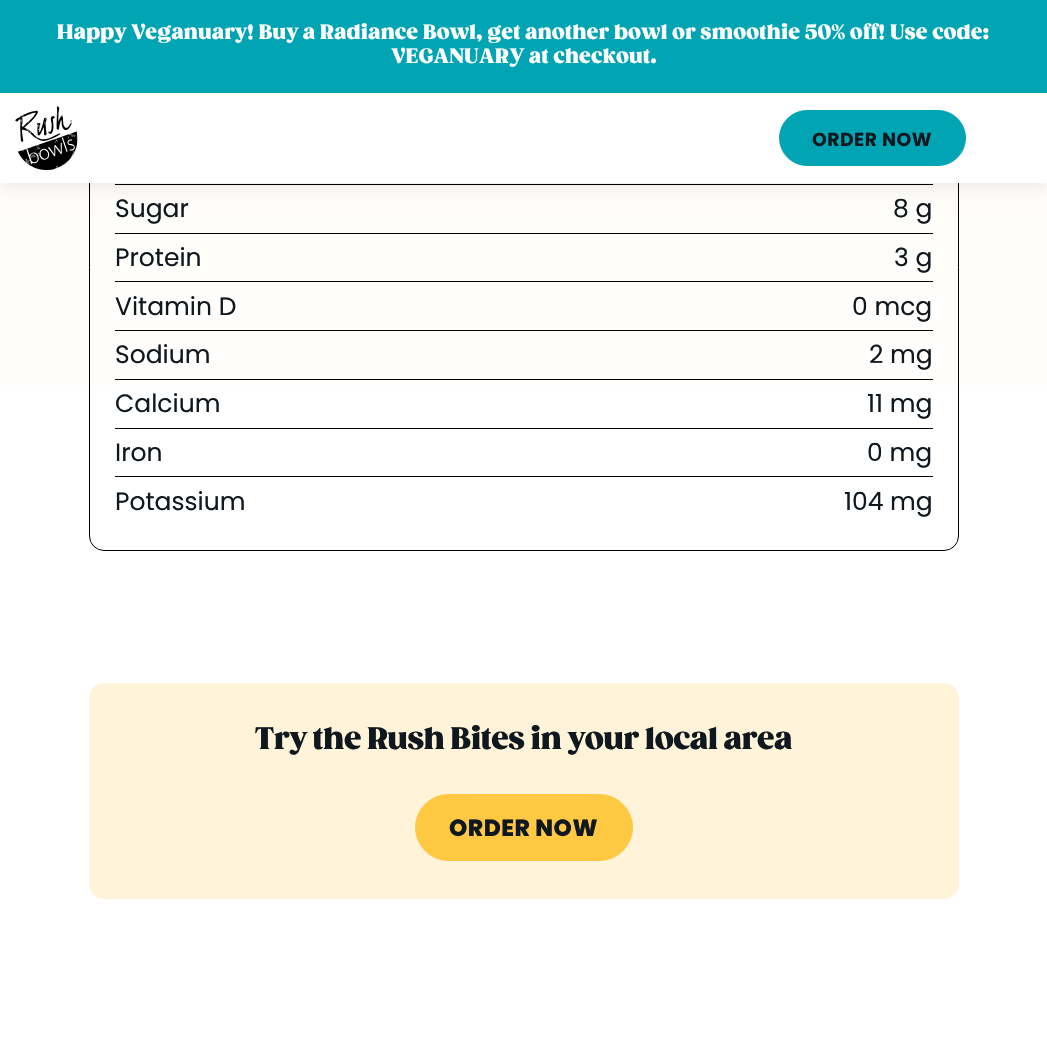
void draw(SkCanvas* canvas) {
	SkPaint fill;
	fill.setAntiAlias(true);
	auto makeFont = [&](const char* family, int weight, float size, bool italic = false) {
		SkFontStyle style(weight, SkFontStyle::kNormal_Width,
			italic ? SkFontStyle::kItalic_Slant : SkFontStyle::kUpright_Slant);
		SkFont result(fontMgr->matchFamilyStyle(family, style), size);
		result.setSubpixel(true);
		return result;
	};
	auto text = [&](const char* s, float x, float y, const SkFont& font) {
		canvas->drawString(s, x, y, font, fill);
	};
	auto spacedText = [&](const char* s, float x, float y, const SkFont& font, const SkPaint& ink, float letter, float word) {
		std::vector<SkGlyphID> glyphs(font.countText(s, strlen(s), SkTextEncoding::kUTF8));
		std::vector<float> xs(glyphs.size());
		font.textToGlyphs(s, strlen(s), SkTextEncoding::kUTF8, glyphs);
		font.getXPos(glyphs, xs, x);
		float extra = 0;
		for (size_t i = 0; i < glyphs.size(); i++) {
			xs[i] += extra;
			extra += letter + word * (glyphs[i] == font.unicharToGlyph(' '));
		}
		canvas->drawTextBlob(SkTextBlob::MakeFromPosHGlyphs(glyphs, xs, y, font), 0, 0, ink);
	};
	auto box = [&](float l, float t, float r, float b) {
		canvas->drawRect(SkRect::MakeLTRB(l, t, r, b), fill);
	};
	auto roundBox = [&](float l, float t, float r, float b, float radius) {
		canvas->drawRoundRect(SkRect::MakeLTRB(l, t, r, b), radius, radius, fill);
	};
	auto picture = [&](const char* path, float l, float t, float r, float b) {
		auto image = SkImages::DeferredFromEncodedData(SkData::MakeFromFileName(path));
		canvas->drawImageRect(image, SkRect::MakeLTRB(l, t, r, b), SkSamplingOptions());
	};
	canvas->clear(0xFFFFFFFF);
	{
		const SkColor colors[] = {0xFFFFFAED, 0xFFFFFFFF};
		const float stops[] = {0, 1};
		const SkPoint ends[] = {{524, -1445}, {524, 683}};
		fill.setShader(SkGradientShader::MakeLinear(ends, colors, stops, 2, SkTileMode::kClamp));
		fill.setAlpha(255);
	}
	box(0, 183, 1047, 387);
	fill.setStyle(SkPaint::kStroke_Style);
	fill.setStrokeWidth(1);
	fill.setShader(nullptr);
	fill.setColor(0xFF000000);
	canvas->drawRoundRect(SkRect::MakeLTRB(89.5f, -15.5f, 958.5f, 550.5f), 14.5f, 14.5f, fill);
	fill.setStyle(SkPaint::kFill_Style);
	fill.setColor(0xFFFFFFFF);
	box(89, 93, 959, 183);
	fill.setColor(0xFF000000);
	box(115, 184, 933, 185);
	canvas->save();
	canvas->clipPath(SkPathBuilder(SkPathFillType::kEvenOdd).moveTo(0, 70).lineTo(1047, 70).lineTo(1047, 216).lineTo(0, 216).close().moveTo(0, 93).lineTo(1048, 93).lineTo(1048, 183).lineTo(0, 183).close().detach(), true);
	fill.setColor(0x14000000);
	fill.setMaskFilter(SkMaskFilter::MakeBlur(kNormal_SkBlurStyle, 9));
	canvas->drawRect(SkRect::MakeLTRB(0, 98, 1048, 188), fill);
	fill.setMaskFilter(nullptr);
	canvas->restore();
	fill.setColor(0xFF00A4B3);
	box(0, 0, 1047, 93);
	picture("image0.png", 15, 106, 78, 170);
	canvas->drawRoundRect(SkRect::MakeLTRB(779.5f, 110.5f, 965.5f, 165.5f), 27.5f, 27.5f, fill);
	fill.setStyle(SkPaint::kStroke_Style);
	canvas->drawRoundRect(SkRect::MakeLTRB(779.5f, 110.5f, 965.5f, 165.5f), 27.5f, 27.5f, fill);
	fill.setStyle(SkPaint::kFill_Style);
	fill.setColor(0xFF000000);
	box(115, 233, 933, 234);
	box(115, 281, 933, 282);
	box(115, 330, 933, 331);
	box(115, 379, 933, 380);
	box(115, 428, 933, 429);
	box(115, 476, 933, 477);
	fill.setColor(0xFFFFF4D9);
	roundBox(89, 683, 959, 899, 15);
	fill.setColor(0xFFFFC842);
	canvas->drawRoundRect(SkRect::MakeLTRB(415.5f, 794.5f, 632.5f, 860.5f), 33, 33, fill);
	fill.setStyle(SkPaint::kStroke_Style);
	canvas->drawRoundRect(SkRect::MakeLTRB(415.5f, 794.5f, 632.5f, 860.5f), 33, 33, fill);
	auto font1 = makeFont("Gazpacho", 900, 20);
	fill.setStyle(SkPaint::kFill_Style);
	fill.setColor(0xFFFFFFFF);
	spacedText("Happy Veganuary! Buy a Radiance Bowl, get another bowl or smoothie 50% off! Use code:", 57, 39, font1, fill, 0.5f, 0);
	spacedText("VEGANUARY at checkout.", 391, 63, font1, fill, 0.5f, 0);
	auto font2 = makeFont("Poppins", 700, 18.75f);
	fill.setColor(0xFF10181F);
	spacedText("ORDER NOW", 812, 146, font2, fill, 0.5f, 0);
	auto font3 = makeFont("Poppins", 400, 25);
	text("Sugar", 115, 217, font3);
	text("8 g", 893, 217, font3);
	text("Protein", 115, 266, font3);
	text("3 g", 894, 266, font3);
	text("Vitamin D", 115, 315, font3);
	text("0 mcg", 852, 315, font3);
	text("Sodium", 115, 363, font3);
	text("2 mg", 869, 363, font3);
	text("Calcium", 115, 412, font3);
	text("11 mg", 867, 412, font3);
	text("Iron", 115, 461, font3);
	text("0 mg", 867, 461, font3);
	text("Potassium", 115, 510, font3);
	text("104 mg", 844, 510, font3);
	auto font4 = makeFont("Gazpacho", 900, 30);
	text("Try the Rush Bites in your local area", 255, 749, font4);
	auto font5 = makeFont("Poppins", 800, 23.25f);
	spacedText("ORDER NOW", 449, 836, font5, fill, 0.5f, 0);
}
